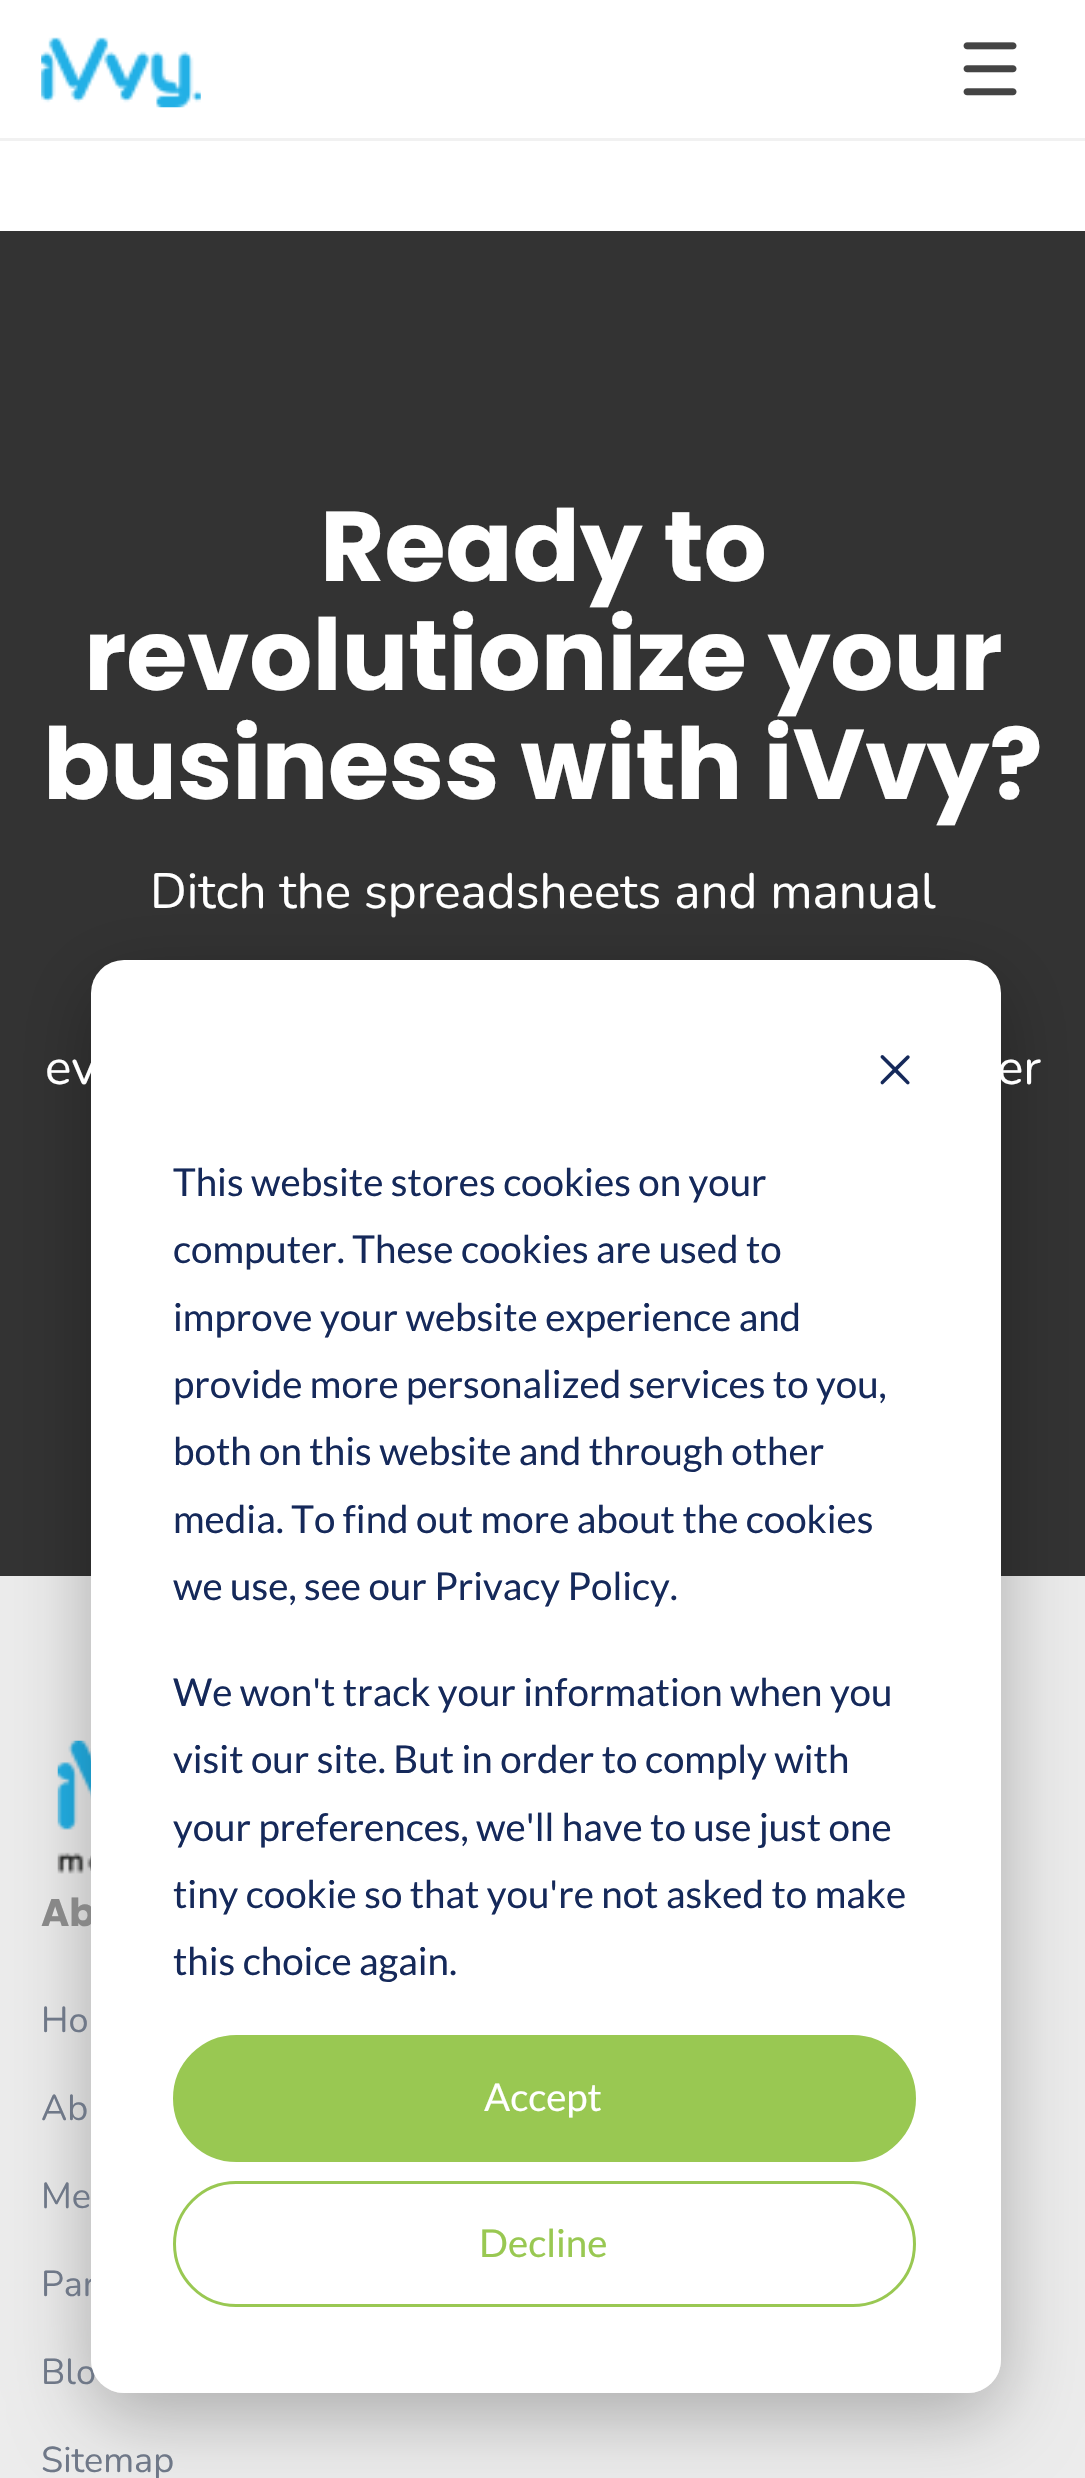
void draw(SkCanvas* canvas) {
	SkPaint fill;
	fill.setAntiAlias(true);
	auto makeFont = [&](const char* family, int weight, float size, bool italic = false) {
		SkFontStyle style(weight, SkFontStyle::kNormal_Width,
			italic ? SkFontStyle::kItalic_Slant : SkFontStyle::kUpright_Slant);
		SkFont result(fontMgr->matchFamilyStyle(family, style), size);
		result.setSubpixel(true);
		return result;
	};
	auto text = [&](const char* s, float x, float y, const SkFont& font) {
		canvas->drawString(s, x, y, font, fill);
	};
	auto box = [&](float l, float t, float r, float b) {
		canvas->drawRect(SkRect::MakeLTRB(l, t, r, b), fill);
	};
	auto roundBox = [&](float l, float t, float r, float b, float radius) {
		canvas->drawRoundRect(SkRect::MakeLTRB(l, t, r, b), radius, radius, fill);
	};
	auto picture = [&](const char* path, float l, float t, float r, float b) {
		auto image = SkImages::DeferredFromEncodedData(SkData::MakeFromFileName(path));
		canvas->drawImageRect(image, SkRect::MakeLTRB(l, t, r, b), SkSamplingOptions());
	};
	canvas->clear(0xFFFFFFFF);
	fill.setColor(0xFFF1F1F1);
	box(0, 138, 1085, 141);
	picture("image0.png", 41, 37, 201, 108);
	picture("image1.png", 963, 42, 1017, 96);
	fill.setColor(0xFF333333);
	box(0, 231, 1085, 1576);
	fill.setColor(0xFFECECEC);
	box(0, 1576, 1085, 2478);
	picture("image2.png", 57, 1740, 91, 1874);
	canvas->save();
	canvas->clipPath(SkPathBuilder(SkPathFillType::kEvenOdd).moveTo(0, 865).lineTo(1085, 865).lineTo(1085, 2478).lineTo(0, 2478).close().moveTo(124, 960).lineTo(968, 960).cubicTo(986, 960, 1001, 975, 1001, 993).lineTo(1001, 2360).cubicTo(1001, 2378, 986, 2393, 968, 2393).lineTo(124, 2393).cubicTo(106, 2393, 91, 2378, 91, 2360).lineTo(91, 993).cubicTo(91, 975, 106, 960, 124, 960).close().detach(), true);
	fill.setColor(0x47000000);
	fill.setMaskFilter(SkMaskFilter::MakeBlur(kNormal_SkBlurStyle, 38.5f));
	canvas->drawRoundRect(SkRect::MakeLTRB(91, 982, 1001, 2415), 33, 33, fill);
	fill.setMaskFilter(nullptr);
	canvas->restore();
	auto font1 = makeFont("Poppins", 700, 99);
	fill.setColor(0xFFFFFFFF);
	text("Ready to", 320, 581, font1);
	text("revolutionize your", 84, 690, font1);
	text("business with iVvy?", 43, 799, font1);
	auto font2 = makeFont("Nunito", 200, 49.5f);
	text("Ditch the spreadsheets and manual", 150, 908, font2);
	text("ev", 45, 1084, font2);
	text("er", 997, 1084, font2);
	auto font3 = makeFont("Poppins", 700, 38.5f);
	fill.setColor(0xFF888888);
	text("Ab", 41, 1926, font3);
	auto font4 = makeFont("Nunito", 200, 36);
	fill.setColor(0xFF6F7888);
	text("Ho", 41, 2032, font4);
	text("Ab", 41, 2120, font4);
	text("Me", 41, 2208, font4);
	text("Par", 41, 2296, font4);
	text("Blo", 41, 2384, font4);
	text("Sitemap", 41, 2472, font4);
	fill.setColor(0xFFFFFFFF);
	roundBox(91, 960, 1001, 2393, 33);
	picture("image3.png", 880, 1055, 910, 1085);
	auto font5 = makeFont("Lato", 400, 38.5f);
	fill.setColor(0xFF15295A);
	text("This website stores cookies on your", 173, 1196, font5);
	text("computer. These cookies are used to", 173, 1263, font5);
	text("improve your website experience and", 173, 1331, font5);
	text("provide more personalized services to you,", 173, 1398, font5);
	text("both on this website and through other", 173, 1465, font5);
	text("media. To find out more about the cookies", 173, 1533, font5);
	text("we use, see our Privacy Policy.", 173, 1600, font5);
	text("We won't track your information when you", 173, 1706, font5);
	text("visit our site. But in order to comply with", 173, 1773, font5);
	text("your preferences, we'll have to use just one", 173, 1841, font5);
	text("tiny cookie so that you're not asked to make", 173, 1908, font5);
	text("this choice again.", 173, 1975, font5);
	fill.setColor(0xFF99C852);
	canvas->drawRoundRect(SkRect::MakeLTRB(174.5f, 2036.5f, 914.5f, 2160.5f), 62, 62, fill);
	fill.setStyle(SkPaint::kStroke_Style);
	fill.setStrokeWidth(3);
	canvas->drawRoundRect(SkRect::MakeLTRB(174.5f, 2036.5f, 914.5f, 2160.5f), 62, 62, fill);
	fill.setStyle(SkPaint::kFill_Style);
	fill.setColor(0xFFFFFFFF);
	text("Accept", 484, 2111, font5);
	fill.setStyle(SkPaint::kStroke_Style);
	fill.setColor(0xFF99C852);
	canvas->drawRoundRect(SkRect::MakeLTRB(174.5f, 2182.5f, 914.5f, 2305.5f), 61.5f, 61.5f, fill);
	fill.setStyle(SkPaint::kFill_Style);
	text("Decline", 479, 2257, font5);
}
